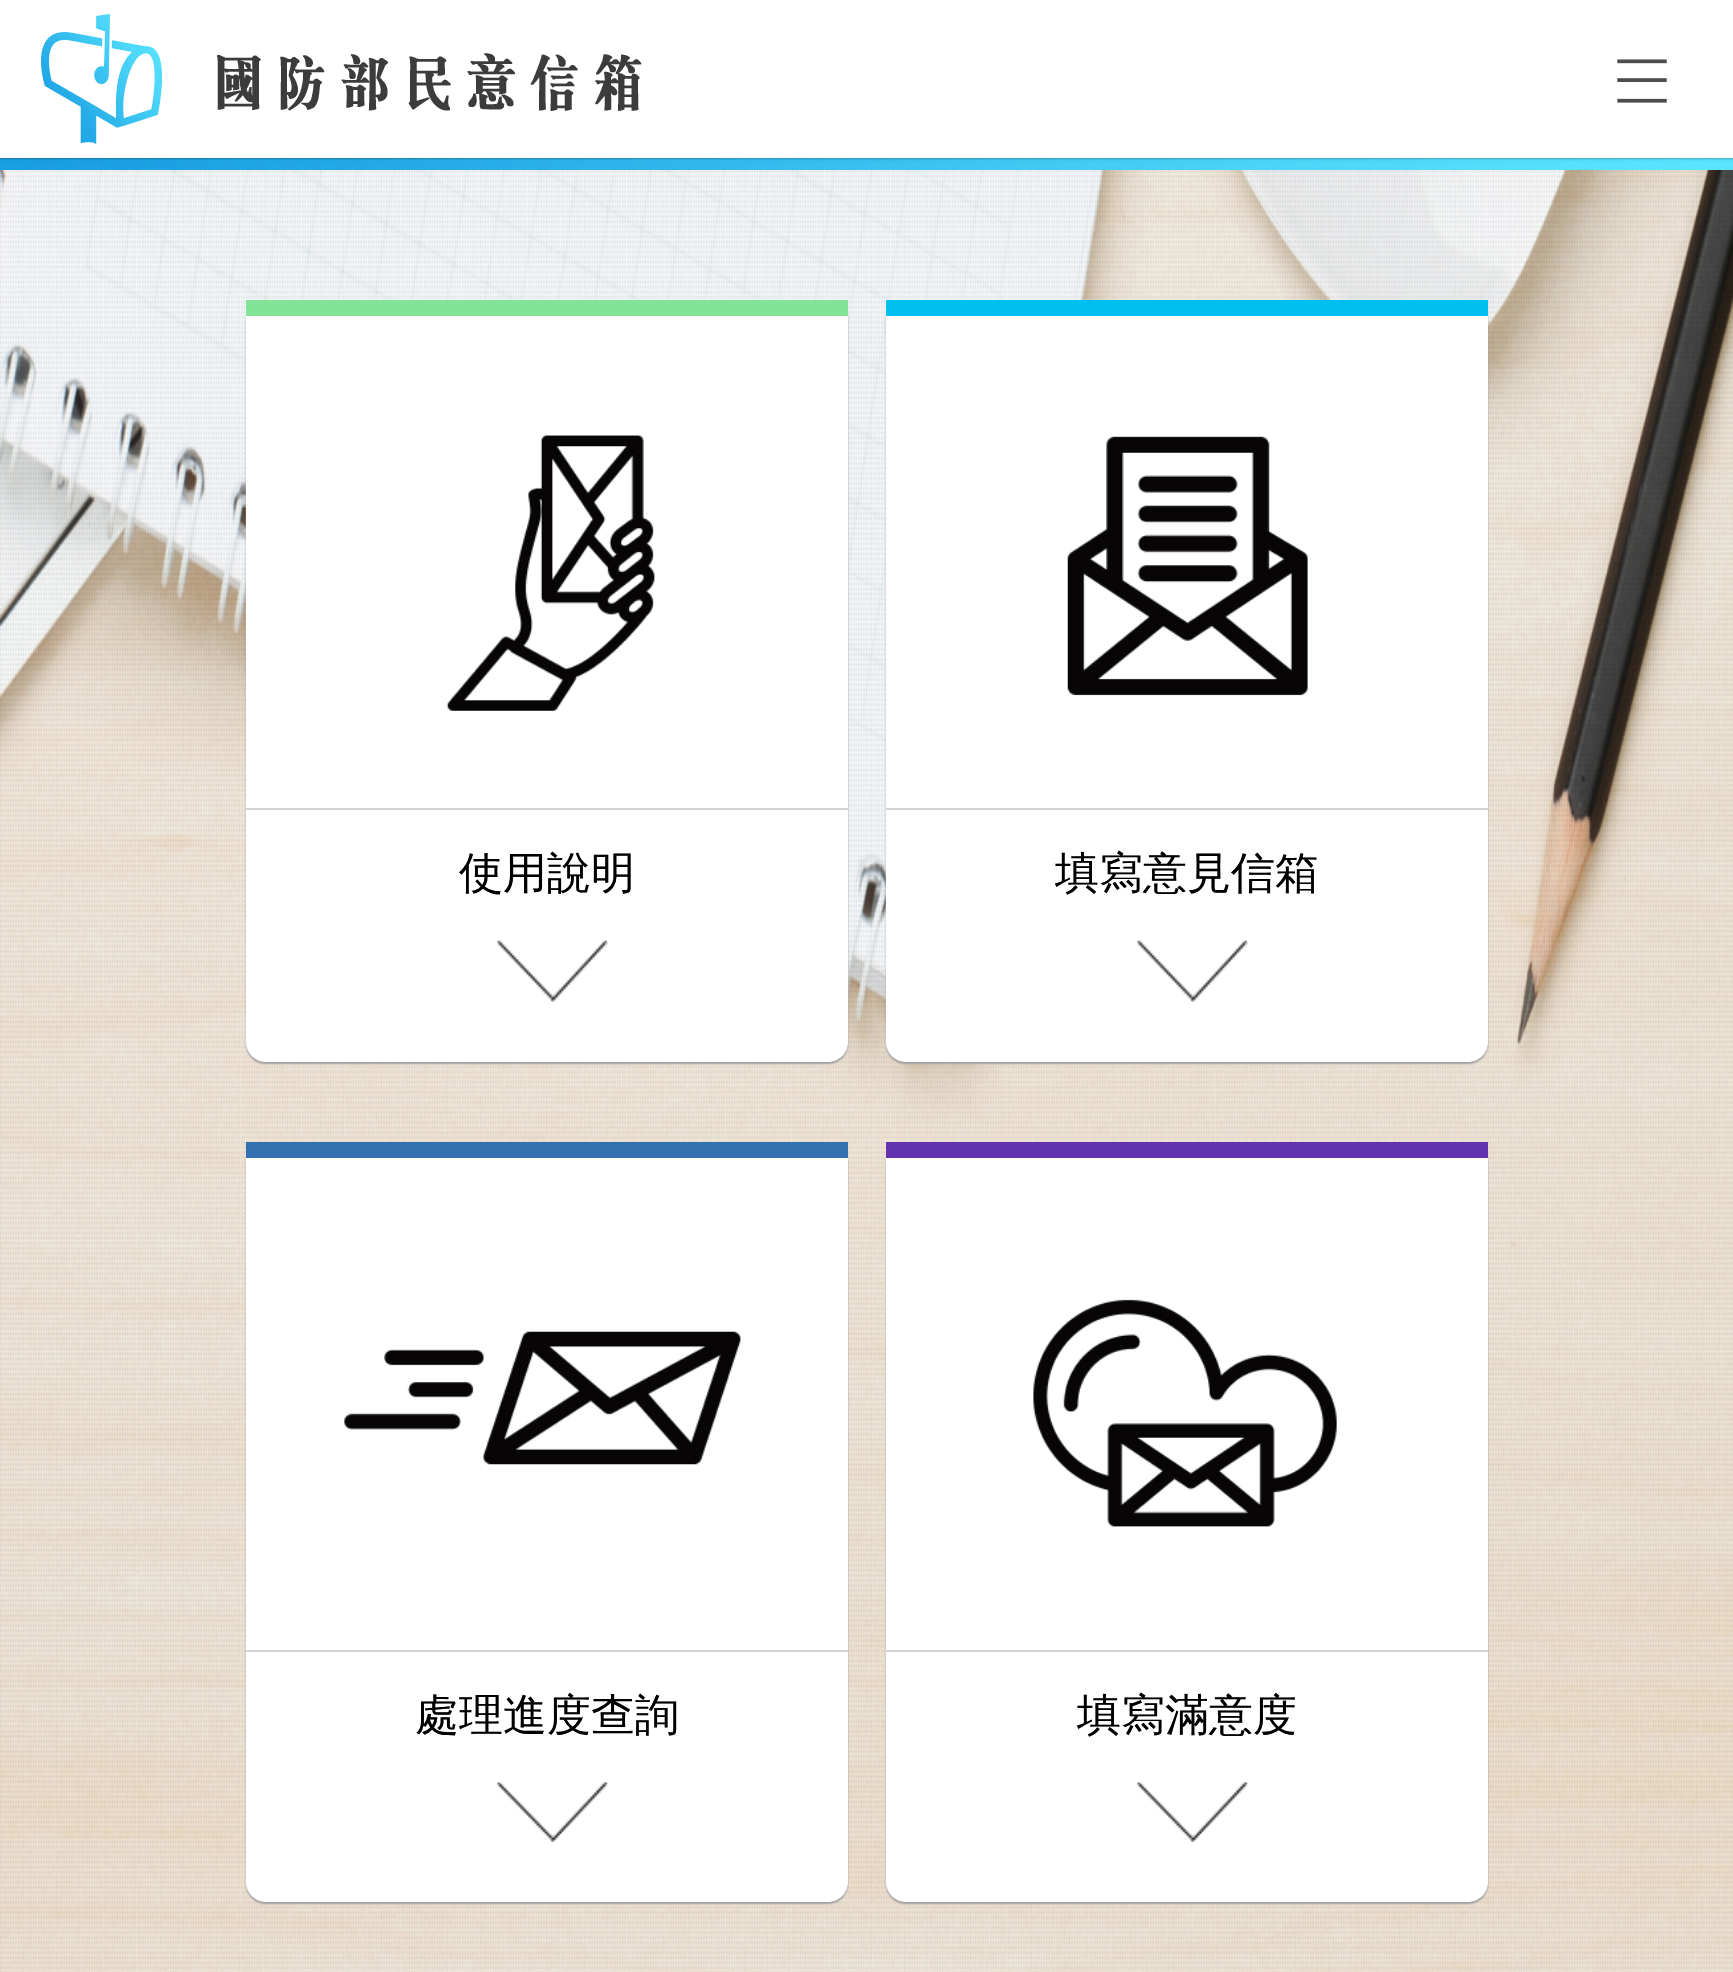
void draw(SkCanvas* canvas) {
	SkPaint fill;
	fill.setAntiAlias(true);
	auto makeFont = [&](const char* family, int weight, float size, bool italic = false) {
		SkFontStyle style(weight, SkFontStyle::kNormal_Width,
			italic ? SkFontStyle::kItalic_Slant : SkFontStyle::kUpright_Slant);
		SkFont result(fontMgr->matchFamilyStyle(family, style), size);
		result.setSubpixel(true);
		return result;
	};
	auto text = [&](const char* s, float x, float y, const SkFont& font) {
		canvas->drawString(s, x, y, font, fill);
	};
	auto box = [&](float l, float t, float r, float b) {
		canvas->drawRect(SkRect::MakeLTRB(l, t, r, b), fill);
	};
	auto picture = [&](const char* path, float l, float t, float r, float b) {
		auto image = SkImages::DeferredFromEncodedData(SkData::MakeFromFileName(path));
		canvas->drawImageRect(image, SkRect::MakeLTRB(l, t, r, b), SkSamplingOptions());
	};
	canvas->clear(0xFFFFFFFF);
	picture("image0.png", 41, 14, 642, 144);
	picture("image1.png", 1617, 59, 1667, 103);
	picture("image2.png", 0, 158, 1733, 170);
	picture("image3.png", 0, 170, 1733, 1972);
	fill.setColor(0xFFA0A0A0);
	fill.setMaskFilter(SkMaskFilter::MakeBlur(kNormal_SkBlurStyle, 1));
	canvas->drawRoundRect(SkRect::MakeLTRB(246, 302, 848, 1064), 20, 20, fill);
	fill.setMaskFilter(nullptr);
	fill.setColor(0xFFFFFFFF);
	canvas->drawPath(SkPathBuilder().moveTo(246, 300).lineTo(848, 300).lineTo(848, 1042).cubicTo(848, 1053, 839, 1062, 828, 1062).lineTo(266, 1062).cubicTo(255, 1062, 246, 1053, 246, 1042).close().detach(), fill);
	fill.setColor(0xFF81E496);
	box(246, 300, 848, 316);
	picture("image4.png", 447, 435, 655, 711);
	fill.setColor(0xFFD2D2D2);
	box(246, 808, 848, 810);
	picture("image5.png", 497, 940, 608, 1002);
	fill.setColor(0xFFA0A0A0);
	fill.setMaskFilter(SkMaskFilter::MakeBlur(kNormal_SkBlurStyle, 1));
	canvas->drawRoundRect(SkRect::MakeLTRB(886, 302, 1488, 1064), 20, 20, fill);
	fill.setMaskFilter(nullptr);
	fill.setColor(0xFFFFFFFF);
	canvas->drawPath(SkPathBuilder().moveTo(886, 300).lineTo(1488, 300).lineTo(1488, 1042).cubicTo(1488, 1053, 1479, 1062, 1468, 1062).lineTo(906, 1062).cubicTo(895, 1062, 886, 1053, 886, 1042).close().detach(), fill);
	fill.setColor(0xFF01BFEE);
	box(886, 300, 1488, 316);
	picture("image6.png", 1067, 436, 1308, 696);
	fill.setColor(0xFFD2D2D2);
	box(886, 808, 1488, 810);
	picture("image5.png", 1137, 940, 1248, 1002);
	fill.setColor(0xFFA0A0A0);
	fill.setMaskFilter(SkMaskFilter::MakeBlur(kNormal_SkBlurStyle, 1));
	canvas->drawRoundRect(SkRect::MakeLTRB(246, 1144, 848, 1904), 20, 20, fill);
	fill.setMaskFilter(nullptr);
	fill.setColor(0xFFFFFFFF);
	canvas->drawPath(SkPathBuilder().moveTo(246, 1142).lineTo(848, 1142).lineTo(848, 1882).cubicTo(848, 1893, 839, 1902, 828, 1902).lineTo(266, 1902).cubicTo(255, 1902, 246, 1893, 246, 1882).close().detach(), fill);
	fill.setColor(0xFF3270B0);
	box(246, 1142, 848, 1158);
	picture("image7.png", 344, 1331, 741, 1465);
	fill.setColor(0xFFD2D2D2);
	box(246, 1650, 848, 1652);
	picture("image8.png", 497, 1782, 608, 1843);
	fill.setColor(0xFFA0A0A0);
	fill.setMaskFilter(SkMaskFilter::MakeBlur(kNormal_SkBlurStyle, 1));
	canvas->drawRoundRect(SkRect::MakeLTRB(886, 1144, 1488, 1904), 20, 20, fill);
	fill.setMaskFilter(nullptr);
	fill.setColor(0xFFFFFFFF);
	canvas->drawPath(SkPathBuilder().moveTo(886, 1142).lineTo(1488, 1142).lineTo(1488, 1882).cubicTo(1488, 1893, 1479, 1902, 1468, 1902).lineTo(906, 1902).cubicTo(895, 1902, 886, 1893, 886, 1882).close().detach(), fill);
	fill.setColor(0xFF6232B0);
	box(886, 1142, 1488, 1158);
	picture("image9.png", 1033, 1299, 1337, 1527);
	fill.setColor(0xFFD2D2D2);
	box(886, 1650, 1488, 1652);
	picture("image8.png", 1137, 1782, 1248, 1843);
	auto font1 = makeFont("WenQuanYi Zen Hei", 500, 44);
	fill.setColor(0xFF000000);
	text("使用說明", 459, 888, font1);
	text("填寫意見信箱", 1055, 888, font1);
	text("處理進度查詢", 415, 1730, font1);
	text("填寫滿意度", 1077, 1730, font1);
}
